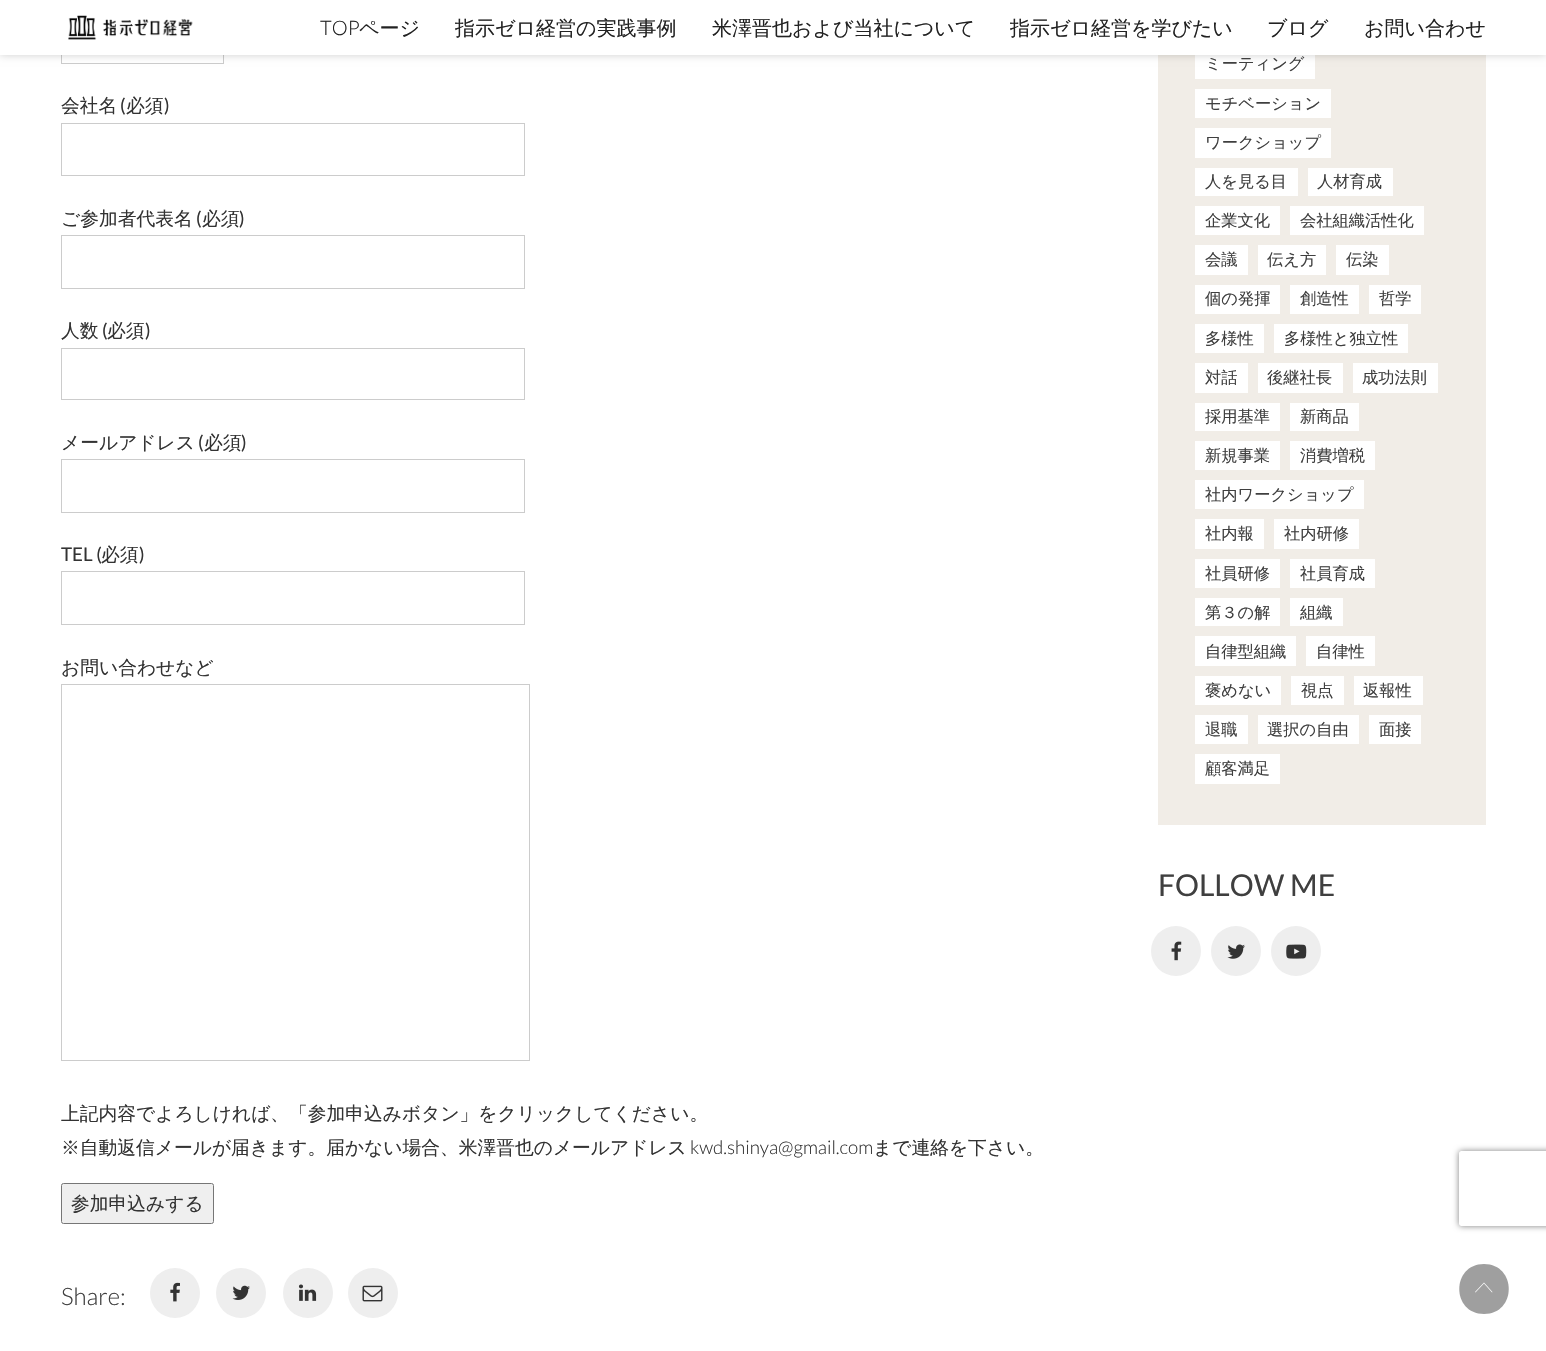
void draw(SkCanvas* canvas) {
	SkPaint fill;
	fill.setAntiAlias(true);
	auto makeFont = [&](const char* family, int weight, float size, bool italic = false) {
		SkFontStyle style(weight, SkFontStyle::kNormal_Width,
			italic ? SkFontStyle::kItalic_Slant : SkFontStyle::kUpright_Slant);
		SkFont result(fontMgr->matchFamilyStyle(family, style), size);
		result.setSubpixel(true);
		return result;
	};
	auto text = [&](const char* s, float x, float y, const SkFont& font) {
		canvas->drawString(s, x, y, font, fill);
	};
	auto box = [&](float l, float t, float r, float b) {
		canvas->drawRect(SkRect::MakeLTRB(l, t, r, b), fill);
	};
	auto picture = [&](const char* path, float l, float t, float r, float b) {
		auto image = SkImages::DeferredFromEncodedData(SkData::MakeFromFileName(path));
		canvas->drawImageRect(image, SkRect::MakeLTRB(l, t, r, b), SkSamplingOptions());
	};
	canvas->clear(0xFFFFFFFF);
	fill.setStyle(SkPaint::kStroke_Style);
	fill.setStrokeWidth(1);
	fill.setColor(0xFFCCCCCC);
	canvas->drawRect(SkRect::MakeLTRB(61.5f, 25.5f, 223.5f, 63.5f), fill);
	fill.setStyle(SkPaint::kFill_Style);
	fill.setColor(0xFFF1EDE7);
	box(1158, 55, 1486, 825);
	fill.setColor(0xFFFFFFFF);
	box(1195, 55, 1315, 79);
	fill.setColor(0x30000000);
	fill.setMaskFilter(SkMaskFilter::MakeBlur(kNormal_SkBlurStyle, 4));
	canvas->drawRect(SkRect::MakeLTRB(0, 0, 1546, 55), fill);
	fill.setMaskFilter(nullptr);
	fill.setColor(0xFFFFFFFF);
	box(0, 0, 1546, 55);
	picture("image0.png", 68, 15, 193, 40);
	fill.setStyle(SkPaint::kStroke_Style);
	fill.setColor(0xFFCCCCCC);
	canvas->drawRect(SkRect::MakeLTRB(61.5f, 123.5f, 524.5f, 175.5f), fill);
	canvas->drawRect(SkRect::MakeLTRB(61.5f, 235.5f, 524.5f, 288.5f), fill);
	canvas->drawRect(SkRect::MakeLTRB(61.5f, 348.5f, 524.5f, 399.5f), fill);
	canvas->drawRect(SkRect::MakeLTRB(61.5f, 459.5f, 524.5f, 512.5f), fill);
	canvas->drawRect(SkRect::MakeLTRB(61.5f, 571.5f, 524.5f, 624.5f), fill);
	canvas->drawRect(SkRect::MakeLTRB(61.5f, 684.5f, 529.5f, 1060.5f), fill);
	fill.setStyle(SkPaint::kFill_Style);
	fill.setColor(0xFFEFEFEF);
	canvas->drawRoundRect(SkRect::MakeLTRB(61.5f, 1183.5f, 213.5f, 1223.5f), 2, 2, fill);
	fill.setStyle(SkPaint::kStroke_Style);
	fill.setColor(0xFF767676);
	canvas->drawRoundRect(SkRect::MakeLTRB(61.5f, 1183.5f, 213.5f, 1223.5f), 2, 2, fill);
	fill.setStyle(SkPaint::kFill_Style);
	fill.setColor(0xFFEEEEEE);
	canvas->drawCircle(175, 1293, 25, fill);
	picture("image1.png", 170, 1282, 180, 1302);
	canvas->drawCircle(241, 1293, 25, fill);
	picture("image2.png", 232, 1285, 250, 1300);
	canvas->drawCircle(308, 1293, 25, fill);
	picture("image3.png", 298, 1284, 317, 1301);
	canvas->drawCircle(373, 1293, 25, fill);
	picture("image4.png", 362, 1285, 383, 1302);
	fill.setColor(0xFFFFFFFF);
	box(1195, 89, 1331, 118);
	box(1195, 128, 1331, 158);
	box(1195, 168, 1298, 196);
	box(1308, 168, 1393, 196);
	box(1195, 206, 1280, 235);
	box(1290, 206, 1424, 235);
	box(1195, 245, 1248, 275);
	box(1258, 245, 1326, 275);
	box(1336, 245, 1389, 275);
	box(1195, 285, 1280, 314);
	box(1290, 285, 1359, 314);
	box(1369, 285, 1421, 314);
	box(1195, 324, 1264, 353);
	box(1274, 324, 1408, 353);
	box(1195, 363, 1248, 393);
	box(1258, 363, 1343, 393);
	box(1353, 363, 1438, 393);
	box(1195, 403, 1280, 431);
	box(1290, 403, 1359, 431);
	box(1195, 441, 1280, 470);
	box(1290, 441, 1375, 470);
	box(1195, 480, 1364, 509);
	box(1195, 519, 1264, 549);
	box(1274, 519, 1359, 549);
	box(1195, 559, 1280, 588);
	box(1290, 559, 1375, 588);
	box(1195, 598, 1280, 626);
	box(1290, 598, 1343, 626);
	box(1195, 636, 1296, 666);
	box(1306, 636, 1375, 666);
	box(1195, 676, 1281, 705);
	box(1291, 676, 1344, 705);
	box(1354, 676, 1423, 705);
	box(1195, 715, 1248, 744);
	box(1258, 715, 1359, 744);
	box(1369, 715, 1421, 744);
	box(1195, 754, 1280, 784);
	fill.setColor(0xFFEEEEEE);
	canvas->drawCircle(1176, 951, 25, fill);
	picture("image5.png", 1171, 941, 1182, 961);
	canvas->drawCircle(1236, 951, 25, fill);
	picture("image6.png", 1227, 944, 1245, 959);
	canvas->drawCircle(1296, 951, 25, fill);
	picture("image7.png", 1286, 944, 1307, 959);
	canvas->save();
	canvas->clipPath(SkPathBuilder(SkPathFillType::kEvenOdd).moveTo(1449, 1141).lineTo(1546, 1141).lineTo(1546, 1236).lineTo(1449, 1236).close().moveTo(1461.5f, 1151).lineTo(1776.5f, 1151).cubicTo(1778, 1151, 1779, 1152, 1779, 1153.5f).lineTo(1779, 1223.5f).cubicTo(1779, 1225, 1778, 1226, 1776.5f, 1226).lineTo(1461.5f, 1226).cubicTo(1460, 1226, 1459, 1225, 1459, 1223.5f).lineTo(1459, 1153.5f).cubicTo(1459, 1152, 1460, 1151, 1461.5f, 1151).close().detach(), true);
	fill.setColor(0xFF808080);
	fill.setMaskFilter(SkMaskFilter::MakeBlur(kNormal_SkBlurStyle, 3));
	canvas->drawRoundRect(SkRect::MakeLTRB(1459, 1151, 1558, 1226), 2.5f, 2.5f, fill);
	fill.setMaskFilter(nullptr);
	canvas->restore();
	fill.setColor(0xFF9F9F9F);
	canvas->drawPath(SkPathBuilder().moveTo(1484, 1314).cubicTo(1451, 1314, 1451, 1264, 1484, 1264).cubicTo(1517, 1264, 1517, 1314, 1484, 1314).close().detach(), fill);
	fill.setColor(0xFFFFFFFF);
	canvas->drawPath(SkPathBuilder().moveTo(1484, 1282.5f).lineTo(1492.5f, 1292).lineTo(1492, 1292.5f).lineTo(1484, 1283.5f).lineTo(1475.5f, 1292.5f).lineTo(1475, 1292).close().detach(), fill);
	auto font1 = makeFont("Lato", 300, 20);
	fill.setColor(0xFF222222);
	text("TOP", 320, 35, font1);
	auto font2 = makeFont("WenQuanYi Zen Hei", 500, 20);
	text("ページ", 359, 35, font2);
	text("指示ゼロ経営の実践事例", 455, 35, font2);
	text("米澤晋也および当社について", 712, 35, font2);
	text("指示ゼロ経営を学びたい", 1010, 35, font2);
	text("ブログ", 1267, 35, font2);
	text("お問い合わせ", 1364, 35, font2);
	auto font3 = makeFont("WenQuanYi Zen Hei", 500, 18.75f);
	fill.setColor(0xFF333333);
	text("会社名", 61, 112, font3);
	auto font4 = makeFont("Lato", 400, 18.75f);
	text("(", 120, 112, font4);
	text("必須", 126, 112, font3);
	text(")", 164, 112, font4);
	text("ご参加者代表名", 61, 225, font3);
	text("(", 196, 225, font4);
	text("必須", 202, 225, font3);
	text(")", 239, 225, font4);
	text("人数", 61, 337, font3);
	text("(", 102, 337, font4);
	text("必須", 107, 337, font3);
	text(")", 145, 337, font4);
	text("メールアドレス", 61, 449, font3);
	text("(", 198, 449, font4);
	text("必須", 204, 449, font3);
	text(")", 241, 449, font4);
	text("TEL (", 61, 561, font4);
	text("必須", 101, 561, font3);
	text(")", 139, 561, font4);
	text("お問い合わせなど", 61, 674, font3);
	text("上記内容でよろしければ、「参加申込みボタン」をクリックしてください。", 61, 1120, font3);
	text("※自動返信メールが届きます。届かない場合、米澤晋也のメールアドレス", 61, 1154, font3);
	auto font5 = makeFont("Lato", 300, 18.75f);
	text("kwd.shinya@gmail.com", 690, 1154, font5);
	text("まで連絡を下さい。", 873, 1154, font3);
	text("参加申込みする", 71, 1210, font3);
	auto font6 = makeFont("Lato", 300, 24);
	fill.setColor(0xFF3F3F3F);
	text("Share:", 61, 1305, font6);
	auto font7 = makeFont("WenQuanYi Zen Hei", 500, 16.25f);
	text("ミーティング", 1205, 69, font7);
	text("モチベーション", 1205, 109, font7);
	text("ワークショップ", 1205, 148, font7);
	text("人を見る目", 1205, 187, font7);
	text("人材育成", 1317, 187, font7);
	text("企業文化", 1205, 226, font7);
	text("会社組織活性化", 1300, 226, font7);
	text("会議", 1205, 265, font7);
	text("伝え方", 1267, 265, font7);
	text("伝染", 1346, 265, font7);
	text("個の発揮", 1205, 304, font7);
	text("創造性", 1300, 304, font7);
	text("哲学", 1379, 304, font7);
	text("多様性", 1205, 344, font7);
	text("多様性と独立性", 1284, 344, font7);
	text("対話", 1205, 383, font7);
	text("後継社長", 1267, 383, font7);
	text("成功法則", 1362, 383, font7);
	text("採用基準", 1205, 422, font7);
	text("新商品", 1300, 422, font7);
	text("新規事業", 1205, 461, font7);
	text("消費増税", 1300, 461, font7);
	text("社内ワークショップ", 1205, 500, font7);
	text("社内報", 1205, 539, font7);
	text("社内研修", 1284, 539, font7);
	text("社員研修", 1205, 579, font7);
	text("社員育成", 1300, 579, font7);
	text("第３の解", 1205, 618, font7);
	text("組織", 1300, 618, font7);
	text("自律型組織", 1205, 657, font7);
	text("自律性", 1316, 657, font7);
	text("褒めない", 1205, 696, font7);
	text("視点", 1301, 696, font7);
	text("返報性", 1363, 696, font7);
	text("退職", 1205, 735, font7);
	text("選択の自由", 1267, 735, font7);
	text("面接", 1379, 735, font7);
	text("顧客満足", 1205, 774, font7);
	auto font8 = makeFont("Lato", 400, 30);
	text("FOLLOW ME", 1158, 896, font8);
}
